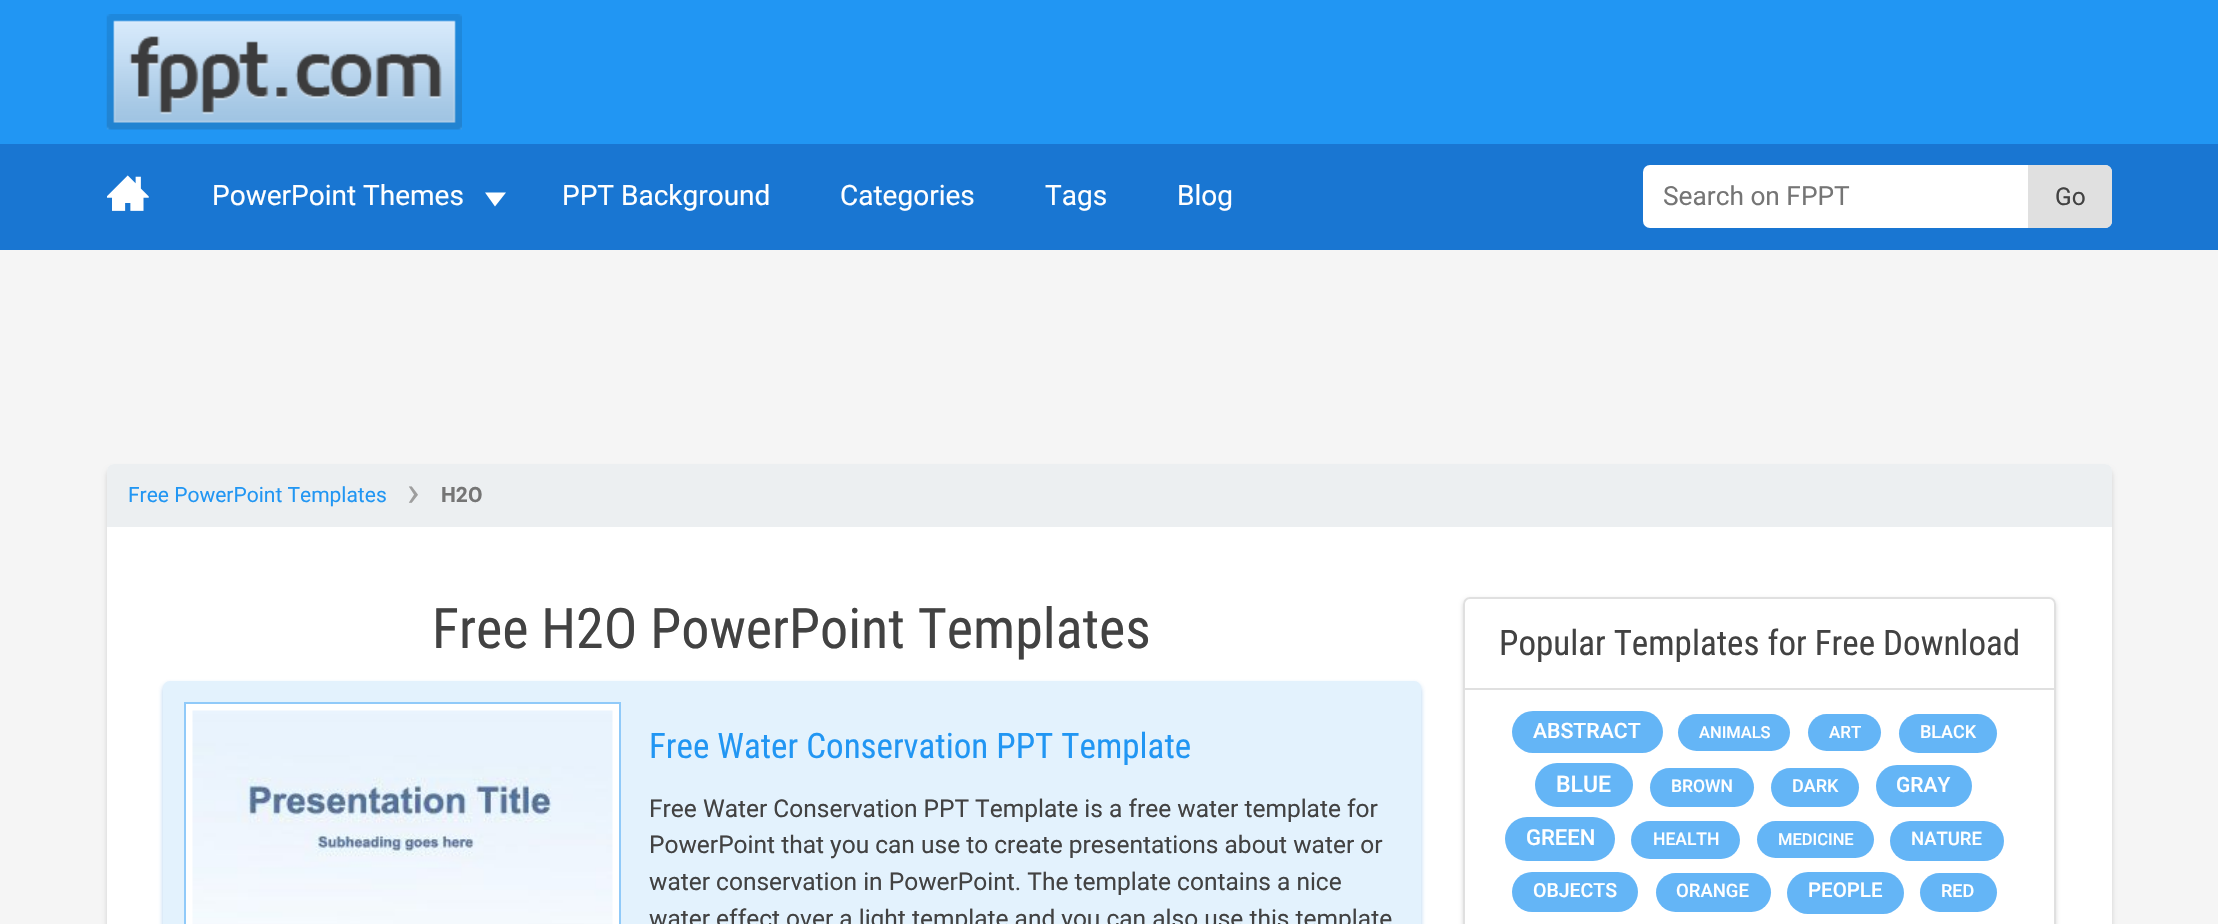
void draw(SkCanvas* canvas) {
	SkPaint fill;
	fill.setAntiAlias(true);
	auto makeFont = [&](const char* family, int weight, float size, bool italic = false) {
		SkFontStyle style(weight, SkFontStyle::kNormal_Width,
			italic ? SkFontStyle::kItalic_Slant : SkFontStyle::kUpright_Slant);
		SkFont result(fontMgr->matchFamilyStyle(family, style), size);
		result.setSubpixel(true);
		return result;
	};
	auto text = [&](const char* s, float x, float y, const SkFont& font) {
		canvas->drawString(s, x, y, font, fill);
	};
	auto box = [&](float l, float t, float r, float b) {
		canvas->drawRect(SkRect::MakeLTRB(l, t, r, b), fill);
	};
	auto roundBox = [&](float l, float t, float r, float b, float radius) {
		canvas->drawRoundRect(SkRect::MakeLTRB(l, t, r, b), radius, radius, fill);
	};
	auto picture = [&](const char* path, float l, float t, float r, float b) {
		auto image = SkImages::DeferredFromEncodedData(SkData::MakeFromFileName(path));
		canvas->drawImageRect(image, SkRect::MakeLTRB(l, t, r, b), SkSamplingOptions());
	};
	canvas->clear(0xFFF5F5F5);
	fill.setColor(0xFF2196F3);
	box(0, 0, 2218, 144);
	picture("image0.png", 106, 14, 462, 130);
	fill.setColor(0xFF1976D2);
	box(0, 144, 2218, 250);
	picture("image1.png", 107, 175, 149, 211);
	fill.setColor(0xFFFFFFFF);
	canvas->drawPath(SkPathBuilder().moveTo(485, 192.5f).lineTo(506, 192.5f).lineTo(495, 206.5f).close().detach(), fill);
	roundBox(1643, 165, 2112, 228, 7);
	fill.setColor(0xFFE0E0E0);
	canvas->drawPath(SkPathBuilder().moveTo(2028, 165).lineTo(2105, 165).cubicTo(2109, 165, 2112, 168, 2112, 172).lineTo(2112, 221).cubicTo(2112, 225, 2109, 228, 2105, 228).lineTo(2028, 228).close().detach(), fill);
	fill.setColor(0x26000000);
	fill.setMaskFilter(SkMaskFilter::MakeBlur(kNormal_SkBlurStyle, 2.5f));
	canvas->drawRoundRect(SkRect::MakeLTRB(107, 469, 2112, 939), 7, 7, fill);
	fill.setMaskFilter(nullptr);
	fill.setColor(0xFFFFFFFF);
	roundBox(107, 464, 2112, 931, 7);
	fill.setColor(0xFFECEFF1);
	canvas->drawPath(SkPathBuilder().moveTo(114, 464).lineTo(2105, 464).cubicTo(2109, 464, 2112, 467, 2112, 471).lineTo(2112, 527).lineTo(107, 527).lineTo(107, 471).cubicTo(107, 467, 110, 464, 114, 464).close().detach(), fill);
	fill.setColor(0x591976D2);
	fill.setMaskFilter(SkMaskFilter::MakeBlur(kNormal_SkBlurStyle, 2.5f));
	canvas->drawRoundRect(SkRect::MakeLTRB(163, 684, 1421, 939), 7, 7, fill);
	fill.setMaskFilter(nullptr);
	fill.setColor(0xFFE3F2FD);
	roundBox(163, 681, 1421, 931, 7);
	fill.setColor(0xFFFFFFFF);
	canvas->drawRect(SkRect::MakeLTRB(185, 703, 620, 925), fill);
	fill.setStyle(SkPaint::kStroke_Style);
	fill.setStrokeWidth(2);
	fill.setColor(0xFF90CAF9);
	canvas->drawRect(SkRect::MakeLTRB(185, 703, 620, 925), fill);
	picture("image2.png", 192, 710, 613, 924);
	canvas->save();
	canvas->clipPath(SkPathBuilder(SkPathFillType::kEvenOdd).moveTo(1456, 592).lineTo(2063, 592).lineTo(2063, 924).lineTo(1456, 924).close().moveTo(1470, 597).lineTo(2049, 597).cubicTo(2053, 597, 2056, 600, 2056, 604).lineTo(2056, 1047).cubicTo(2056, 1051, 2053, 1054, 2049, 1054).lineTo(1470, 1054).cubicTo(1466, 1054, 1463, 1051, 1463, 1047).lineTo(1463, 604).cubicTo(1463, 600, 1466, 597, 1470, 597).close().detach(), true);
	fill.setStyle(SkPaint::kFill_Style);
	fill.setColor(0x26000000);
	fill.setMaskFilter(SkMaskFilter::MakeBlur(kNormal_SkBlurStyle, 2));
	canvas->drawRoundRect(SkRect::MakeLTRB(1463, 599, 2056, 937), 7, 7, fill);
	fill.setMaskFilter(nullptr);
	canvas->restore();
	fill.setStyle(SkPaint::kStroke_Style);
	fill.setColor(0xFFE0E0E0);
	canvas->drawRoundRect(SkRect::MakeLTRB(1464, 598, 2055, 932), 6, 6, fill);
	fill.setStyle(SkPaint::kFill_Style);
	box(1465, 688, 2055, 690);
	fill.setColor(0xFF64B5F6);
	roundBox(1512, 711, 1663, 753, 21);
	roundBox(1678, 714, 1790, 751, 18.5f);
	roundBox(1808, 714, 1881, 751, 18.5f);
	roundBox(1899, 714, 1997, 753, 19.5f);
	roundBox(1535, 763, 1633, 807, 22);
	roundBox(1650, 768, 1754, 807, 19.5f);
	roundBox(1771, 768, 1859, 807, 19.5f);
	roundBox(1876, 765, 1972, 807, 21);
	roundBox(1505, 817, 1615, 861, 22);
	roundBox(1631, 821, 1740, 859, 19);
	roundBox(1757, 821, 1874, 858, 18.5f);
	roundBox(1890, 821, 2004, 861, 20);
	roundBox(1512, 872, 1638, 912, 20);
	roundBox(1656, 873, 1771, 912, 19.5f);
	roundBox(1787, 872, 1904, 914, 21);
	roundBox(1920, 873, 1997, 912, 19.5f);
	auto font1 = makeFont("Roboto", 400, 28);
	fill.setColor(0xFFFFFFFF);
	text("PowerPoint Themes", 212, 205, font1);
	text("PPT Background", 562, 205, font1);
	text("Categories", 840, 205, font1);
	text("Tags", 1045, 205, font1);
	text("Blog", 1177, 205, font1);
	auto font2 = makeFont("Roboto", 400, 26.25f);
	fill.setColor(0xFF757575);
	text("Search on FPPT", 1663, 205, font2);
	auto font3 = makeFont("Roboto", 400, 24.5f);
	fill.setColor(0xFF424242);
	text("Go", 2055, 205, font3);
	auto font4 = makeFont("Roboto", 400, 21);
	fill.setColor(0xFF2196F3);
	text("Free PowerPoint Templates", 128, 502, font4);
	auto font5 = makeFont("Roboto", 400, 42);
	fill.setColor(0xFF9E9E9E);
	text("›", 407, 506, font5);
	auto font6 = makeFont("Roboto", 700, 21);
	fill.setColor(0xFF757575);
	text("H2O", 441, 502, font6);
	auto font7 = makeFont("Roboto Condensed", 400, 56);
	fill.setColor(0xFF424242);
	text("Free H2O PowerPoint Templates", 432, 648, font7);
	auto font8 = makeFont("Roboto Condensed", 400, 35);
	fill.setColor(0xFF2196F3);
	text("Free Water Conservation PPT Template", 649, 758, font8);
	fill.setColor(0xFF424242);
	text("Free Water Conservation PPT Template is a free water template for", 649, 817, font3);
	text("PowerPoint that you can use to create presentations about water or", 649, 853, font3);
	text("water conservation in PowerPoint. The template contains a nice", 649, 890, font3);
	text("water effect over a light template and you can also use this template", 649, 927, font3);
	text("Popular Templates for Free Download", 1499, 655, font8);
	auto font9 = makeFont("Roboto", 500, 21.25f);
	fill.setColor(0xFFFFFFFF);
	text("ABSTRACT", 1533, 738, font9);
	auto font10 = makeFont("Roboto", 500, 16.5f);
	text("ANIMALS", 1699, 738, font10);
	auto font11 = makeFont("Roboto", 500, 17);
	text("ART", 1829, 738, font11);
	auto font12 = makeFont("Roboto", 500, 18);
	text("BLACK", 1920, 738, font12);
	auto font13 = makeFont("Roboto", 500, 23);
	text("BLUE", 1556, 792, font13);
	auto font14 = makeFont("Roboto", 500, 17.5f);
	text("BROWN", 1671, 792, font14);
	text("DARK", 1792, 792, font12);
	auto font15 = makeFont("Roboto", 500, 21);
	text("GRAY", 1896, 792, font15);
	auto font16 = makeFont("Roboto", 500, 22);
	text("GREEN", 1526, 845, font16);
	text("HEALTH", 1653, 845, font14);
	text("MEDICINE", 1778, 845, font10);
	auto font17 = makeFont("Roboto", 500, 18.5f);
	text("NATURE", 1911, 845, font17);
	auto font18 = makeFont("Roboto", 500, 19.5f);
	text("OBJECTS", 1533, 897, font18);
	text("ORANGE", 1676, 897, font17);
	auto font19 = makeFont("Roboto", 500, 20.5f);
	text("PEOPLE", 1808, 897, font19);
	text("RED", 1941, 897, font12);
}
